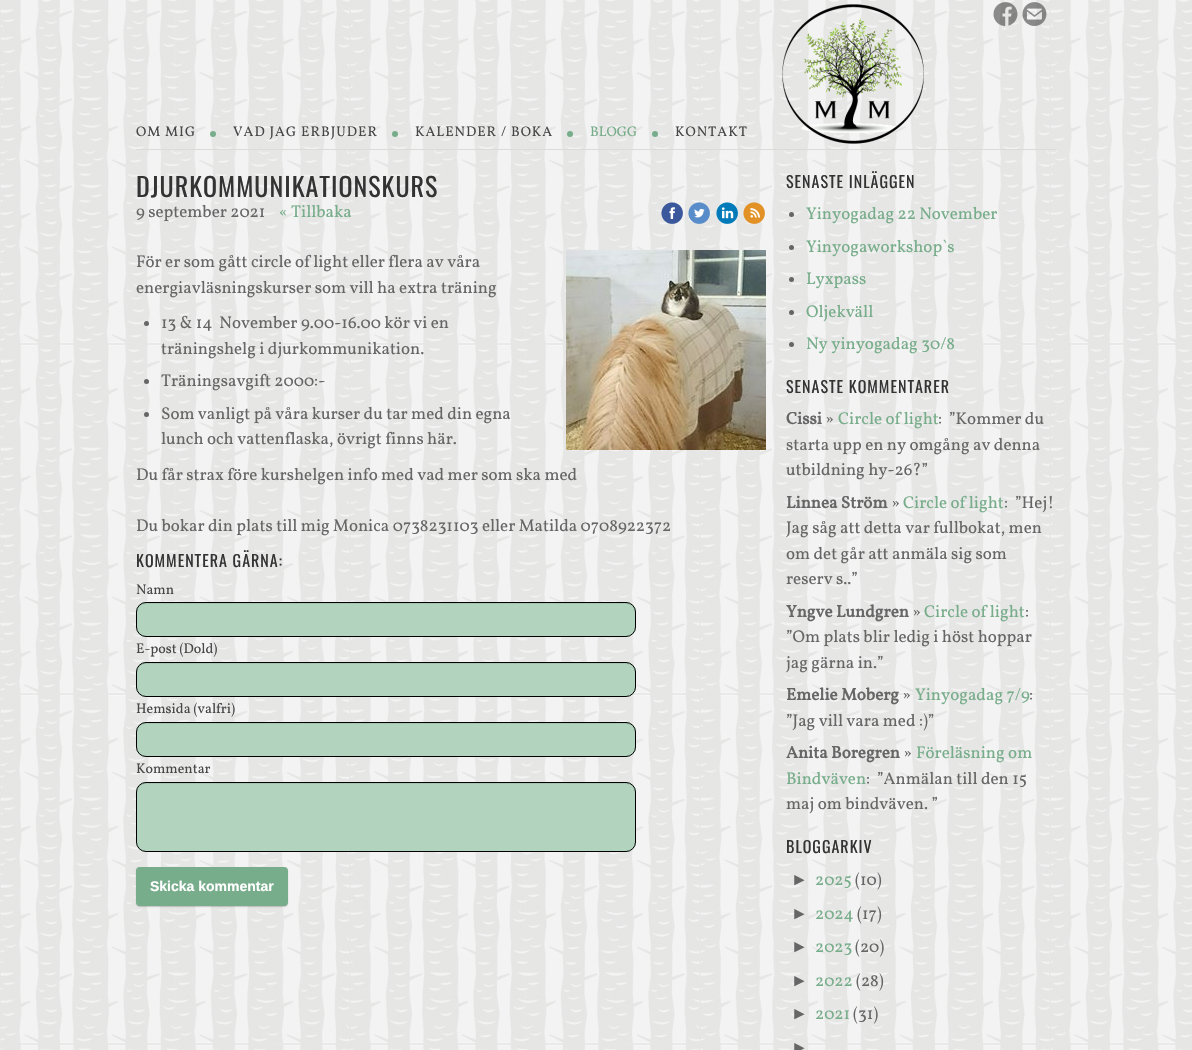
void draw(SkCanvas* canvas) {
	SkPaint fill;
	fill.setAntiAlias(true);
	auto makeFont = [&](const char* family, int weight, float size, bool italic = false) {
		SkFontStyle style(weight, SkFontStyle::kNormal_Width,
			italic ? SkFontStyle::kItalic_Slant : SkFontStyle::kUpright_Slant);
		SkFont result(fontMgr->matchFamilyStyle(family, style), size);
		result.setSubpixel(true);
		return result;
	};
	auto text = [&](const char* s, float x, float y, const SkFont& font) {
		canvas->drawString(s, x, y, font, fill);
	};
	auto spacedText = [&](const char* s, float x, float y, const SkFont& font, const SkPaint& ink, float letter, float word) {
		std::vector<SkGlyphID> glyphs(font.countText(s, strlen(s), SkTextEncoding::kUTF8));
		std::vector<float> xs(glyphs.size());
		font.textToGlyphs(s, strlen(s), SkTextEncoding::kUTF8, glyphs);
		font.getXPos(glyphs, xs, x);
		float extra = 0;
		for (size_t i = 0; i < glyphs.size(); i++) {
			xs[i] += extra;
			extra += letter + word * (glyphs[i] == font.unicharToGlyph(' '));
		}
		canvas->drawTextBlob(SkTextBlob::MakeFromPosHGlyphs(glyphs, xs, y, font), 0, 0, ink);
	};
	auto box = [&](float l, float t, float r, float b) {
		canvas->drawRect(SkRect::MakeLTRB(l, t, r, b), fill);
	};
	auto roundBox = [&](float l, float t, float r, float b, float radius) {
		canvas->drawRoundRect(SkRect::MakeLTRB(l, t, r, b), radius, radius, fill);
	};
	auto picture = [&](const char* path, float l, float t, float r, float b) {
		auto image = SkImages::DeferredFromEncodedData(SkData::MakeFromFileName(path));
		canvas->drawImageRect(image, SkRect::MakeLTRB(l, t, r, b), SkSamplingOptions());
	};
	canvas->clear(0xFFFFFFFF);
	picture("image0.png", 0, 0, 1192, 1050);
	fill.setColor(0xFFDEDADA);
	box(136, 149, 1056, 150);
	fill.setColor(0xFF77AD8A);
	canvas->drawCircle(213, 134, 3, fill);
	canvas->drawCircle(395, 134, 3, fill);
	canvas->drawCircle(570, 134, 3, fill);
	canvas->drawCircle(655, 134, 3, fill);
	picture("image1.png", 782, 4, 924, 144);
	picture("image2.png", 993, 2, 1018, 26);
	picture("image3.png", 1022, 2, 1047, 26);
	picture("image4.png", 661, 202, 683, 224);
	picture("image5.png", 688, 202, 710, 224);
	picture("image6.png", 716, 202, 738, 224);
	picture("image7.png", 743, 202, 765, 224);
	picture("image8.png", 566, 250, 766, 450);
	fill.setColor(0xFF666666);
	canvas->drawCircle(146.5f, 323.5f, 2.5f, fill);
	canvas->drawCircle(146.5f, 381.5f, 2.5f, fill);
	canvas->drawCircle(146.5f, 414.5f, 2.5f, fill);
	fill.setColor(0xFFB2D4BE);
	roundBox(136, 602, 636, 637, 10);
	fill.setColor(0xFFA5C4B0);
	canvas->drawPath(SkPathBuilder().moveTo(146, 604).lineTo(626, 604).cubicTo(631, 604, 635, 608, 635, 613).cubicTo(635, 608, 632, 603, 626, 603).lineTo(146, 603).cubicTo(140, 603, 137, 608, 137, 613).cubicTo(137, 608, 141, 604, 146, 604).close().detach(), fill);
	fill.setStyle(SkPaint::kStroke_Style);
	fill.setStrokeWidth(1);
	fill.setColor(0xFF000000);
	canvas->drawRoundRect(SkRect::MakeLTRB(136.5f, 602.5f, 635.5f, 636.5f), 9.5f, 9.5f, fill);
	fill.setStyle(SkPaint::kFill_Style);
	fill.setColor(0xFFB2D4BE);
	roundBox(136, 662, 636, 697, 10);
	fill.setColor(0xFFA5C4B0);
	canvas->drawPath(SkPathBuilder().moveTo(146, 664).lineTo(626, 664).cubicTo(631, 664, 635, 668, 635, 673).cubicTo(635, 668, 632, 663, 626, 663).lineTo(146, 663).cubicTo(140, 663, 137, 668, 137, 673).cubicTo(137, 668, 141, 664, 146, 664).close().detach(), fill);
	fill.setStyle(SkPaint::kStroke_Style);
	fill.setColor(0xFF000000);
	canvas->drawRoundRect(SkRect::MakeLTRB(136.5f, 662.5f, 635.5f, 696.5f), 9.5f, 9.5f, fill);
	fill.setStyle(SkPaint::kFill_Style);
	fill.setColor(0xFFB2D4BE);
	roundBox(136, 722, 636, 757, 10);
	fill.setColor(0xFFA5C4B0);
	canvas->drawPath(SkPathBuilder().moveTo(146, 724).lineTo(626, 724).cubicTo(631, 724, 635, 728, 635, 733).cubicTo(635, 728, 632, 723, 626, 723).lineTo(146, 723).cubicTo(140, 723, 137, 728, 137, 733).cubicTo(137, 728, 141, 724, 146, 724).close().detach(), fill);
	fill.setStyle(SkPaint::kStroke_Style);
	fill.setColor(0xFF000000);
	canvas->drawRoundRect(SkRect::MakeLTRB(136.5f, 722.5f, 635.5f, 756.5f), 9.5f, 9.5f, fill);
	fill.setStyle(SkPaint::kFill_Style);
	fill.setColor(0xFFB2D4BE);
	roundBox(136, 782, 636, 852, 10);
	fill.setColor(0xFFA5C4B0);
	canvas->drawPath(SkPathBuilder().moveTo(146, 784).lineTo(626, 784).cubicTo(631, 784, 635, 788, 635, 793).cubicTo(635, 788, 632, 783, 626, 783).lineTo(146, 783).cubicTo(140, 783, 137, 788, 137, 793).cubicTo(137, 788, 141, 784, 146, 784).close().detach(), fill);
	fill.setStyle(SkPaint::kStroke_Style);
	fill.setColor(0xFF000000);
	canvas->drawRoundRect(SkRect::MakeLTRB(136.5f, 782.5f, 635.5f, 851.5f), 9.5f, 9.5f, fill);
	fill.setStyle(SkPaint::kFill_Style);
	fill.setColor(0x99000000);
	fill.setMaskFilter(SkMaskFilter::MakeBlur(kNormal_SkBlurStyle, 1));
	canvas->drawRoundRect(SkRect::MakeLTRB(137, 869, 287, 906), 3, 3, fill);
	fill.setMaskFilter(nullptr);
	fill.setColor(0xFF77AD8A);
	roundBox(136, 867, 288, 906, 4);
	fill.setColor(0xFF666666);
	canvas->drawCircle(791.5f, 214.5f, 2.5f, fill);
	canvas->drawCircle(791.5f, 247.5f, 2.5f, fill);
	canvas->drawCircle(791.5f, 279.5f, 2.5f, fill);
	canvas->drawCircle(791.5f, 312.5f, 2.5f, fill);
	canvas->drawCircle(791.5f, 344.5f, 2.5f, fill);
	auto font1 = makeFont("Vollkorn", 400, 14);
	fill.setColor(0xFF474747);
	spacedText("OM MIG", 136, 136, font1, fill, 1, 0);
	spacedText("VAD JAG ERBJUDER", 233, 136, font1, fill, 1, 0);
	spacedText("KALENDER / BOKA", 415, 136, font1, fill, 1, 0);
	fill.setColor(0xFF77AD8A);
	text("BLOGG", 590, 136, font1);
	fill.setColor(0xFF474747);
	spacedText("KONTAKT", 675, 136, font1, fill, 1, 0);
	auto font2 = makeFont("Oswald", 400, 26);
	fill.setColor(0xFF333333);
	spacedText("DJURKOMMUNIKATIONSKURS", 136, 197, font2, fill, 1, 0);
	auto font3 = makeFont("Vollkorn", 400, 17);
	fill.setColor(0xFF666666);
	text("9 september 2021", 136, 217, font3);
	fill.setColor(0xFF77AD8A);
	text("« Tillbaka", 279, 217, font3);
	fill.setColor(0xFF666666);
	text("För er som gått circle of light eller flera av våra", 136, 267, font3);
	text("energiavläsningskurser som vill ha extra träning", 136, 293, font3);
	text("13 & 14  November 9.00-16.00 kör vi en", 161, 328, font3);
	text("träningshelg i djurkommunikation.", 161, 354, font3);
	text("Träningsavgift 2000:-", 161, 386, font3);
	text("Som vanligt på våra kurser du tar med din egna", 161, 419, font3);
	text("lunch och vattenflaska, övrigt finns här.", 161, 444, font3);
	text("Du får strax före kurshelgen info med vad mer som ska med", 136, 480, font3);
	text("Du bokar din plats till mig Monica 0738231103 eller Matilda 0708922372", 136, 531, font3);
	auto font4 = makeFont("Oswald", 400, 16);
	fill.setColor(0xFF333333);
	spacedText("KOMMENTERA GÄRNA:", 136, 567, font4, fill, 1, 0);
	fill.setColor(0xFF474747);
	text("Namn", 136, 594, font1);
	text("E-post (Dold)", 136, 653, font1);
	text("Hemsida (valfri)", 136, 713, font1);
	text("Kommentar", 136, 773, font1);
	auto font5 = makeFont("Liberation Sans", 700, 14);
	fill.setColor(0xFFFFFFFF);
	text("Skicka kommentar", 150, 891, font5);
	fill.setColor(0xFF333333);
	spacedText("SENASTE INLÄGGEN", 786, 188, font4, fill, 1, 0);
	fill.setColor(0xFF77AD8A);
	text("Yinyogadag 22 November", 806, 219, font3);
	text("Yinyogaworkshop`s", 806, 252, font3);
	text("Lyxpass", 806, 284, font3);
	text("Oljekväll", 806, 317, font3);
	text("Ny yinyogadag 30/8", 806, 349, font3);
	fill.setColor(0xFF333333);
	spacedText("SENASTE KOMMENTARER", 786, 393, font4, fill, 1, 0);
	auto font6 = makeFont("Vollkorn", 700, 17);
	fill.setColor(0xFF666666);
	text("Cissi", 786, 424, font6);
	text("»", 825, 424, font3);
	fill.setColor(0xFF77AD8A);
	text("Circle of light", 838, 424, font3);
	fill.setColor(0xFF666666);
	text(":", 938, 424, font3);
	text("”Kommer du", 949, 424, font3);
	text("starta upp en ny omgång av denna", 786, 450, font3);
	text("utbildning hy-26?”", 786, 475, font3);
	text("Linnea Ström", 786, 508, font6);
	text("»", 891, 508, font3);
	fill.setColor(0xFF77AD8A);
	text("Circle of light", 903, 508, font3);
	fill.setColor(0xFF666666);
	text(":", 1004, 508, font3);
	text("”Hej!", 1015, 508, font3);
	text("Jag såg att detta var fullbokat, men", 786, 533, font3);
	text("om det går att anmäla sig som", 786, 559, font3);
	text("reserv s..”", 786, 584, font3);
	text("Yngve Lundgren", 786, 617, font6);
	text("»", 912, 617, font3);
	fill.setColor(0xFF77AD8A);
	text("Circle of light", 924, 617, font3);
	fill.setColor(0xFF666666);
	text(":", 1025, 617, font3);
	text("”Om plats blir ledig i höst hoppar", 786, 642, font3);
	text("jag gärna in.”", 786, 668, font3);
	text("Emelie Moberg", 786, 700, font6);
	text("»", 902, 700, font3);
	fill.setColor(0xFF77AD8A);
	text("Yinyogadag 7/9", 915, 700, font3);
	fill.setColor(0xFF666666);
	text(":", 1029, 700, font3);
	text("”Jag vill vara med :)”", 786, 726, font3);
	text("Anita Boregren", 786, 758, font6);
	text("»", 903, 758, font3);
	fill.setColor(0xFF77AD8A);
	text("Föreläsning om", 916, 758, font3);
	text("Bindväven", 786, 784, font3);
	fill.setColor(0xFF666666);
	text(":", 866, 784, font3);
	text("”Anmälan till den 15", 877, 784, font3);
	text("maj om bindväven. ”", 786, 809, font3);
	fill.setColor(0xFF333333);
	spacedText("BLOGGARKIV", 786, 853, font4, fill, 1, 0);
	auto font7 = makeFont("Liberation Sans", 400, 17);
	fill.setColor(0xFF666666);
	text("►", 791, 885, font7);
	fill.setColor(0xFF77AD8A);
	text("2025", 815, 885, font3);
	fill.setColor(0xFF666666);
	text("(10)", 855, 885, font3);
	text("►", 791, 919, font7);
	fill.setColor(0xFF77AD8A);
	text("2024", 815, 919, font3);
	fill.setColor(0xFF666666);
	text("(17)", 857, 919, font3);
	text("►", 791, 952, font7);
	fill.setColor(0xFF77AD8A);
	text("2023", 815, 952, font3);
	fill.setColor(0xFF666666);
	text("(20)", 855, 952, font3);
	text("►", 791, 986, font7);
	fill.setColor(0xFF77AD8A);
	text("2022", 815, 986, font3);
	fill.setColor(0xFF666666);
	text("(28)", 856, 986, font3);
	text("►", 791, 1019, font7);
	fill.setColor(0xFF77AD8A);
	text("2021", 815, 1019, font3);
	fill.setColor(0xFF666666);
	text("(31)", 853, 1019, font3);
	text("►", 791, 1053, font7);
}
